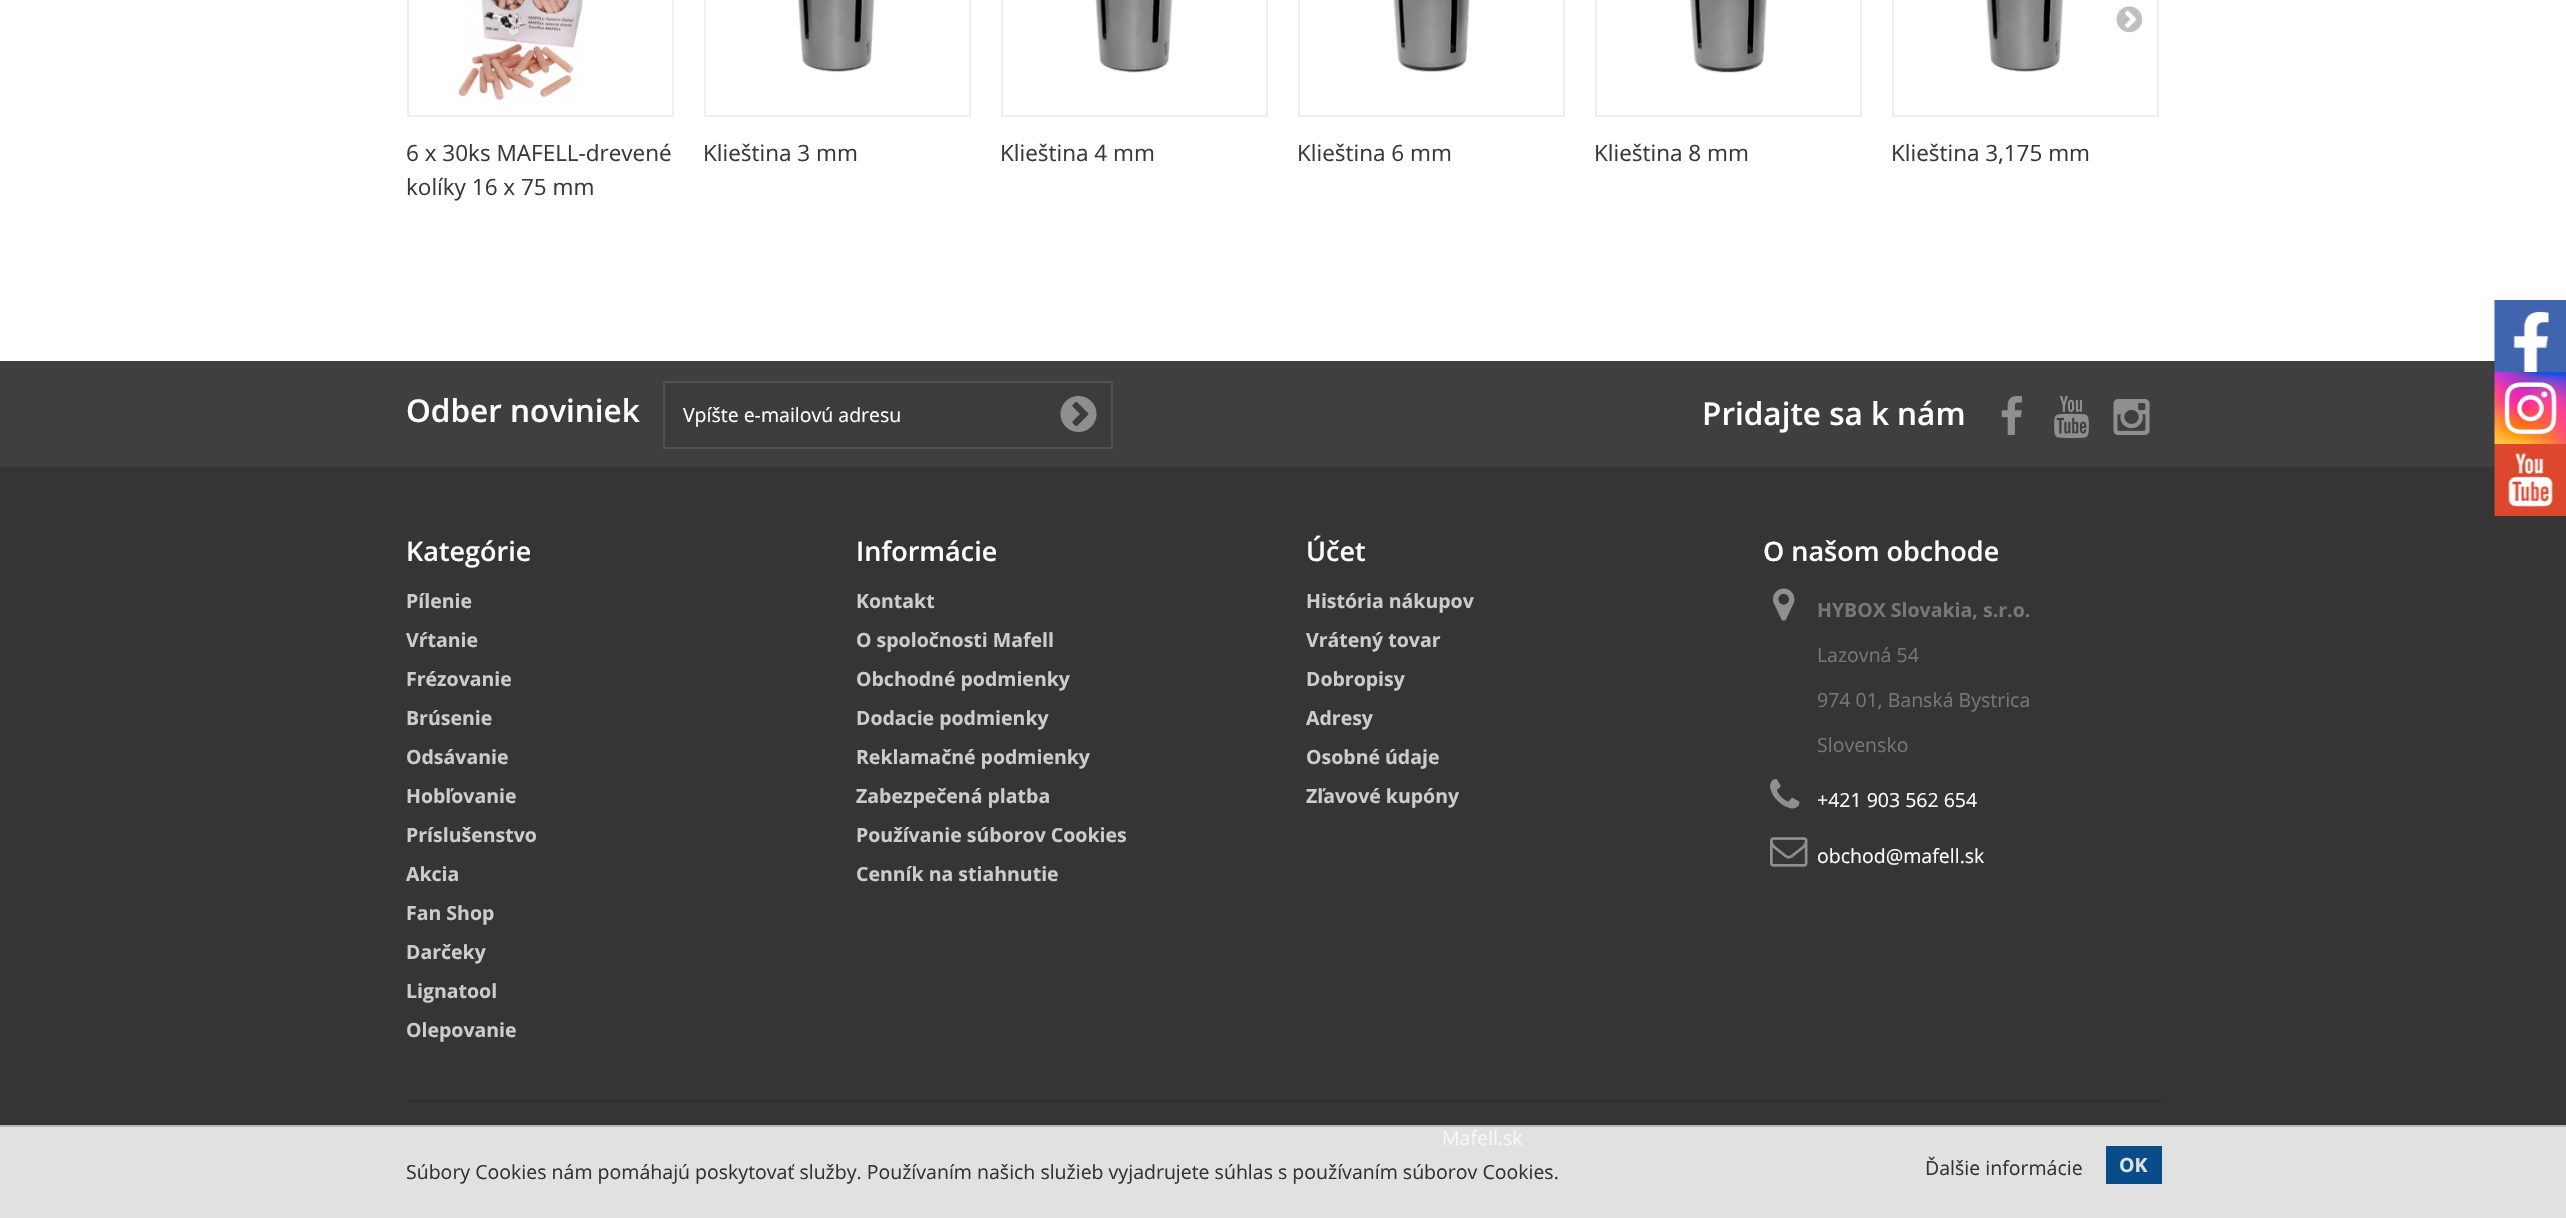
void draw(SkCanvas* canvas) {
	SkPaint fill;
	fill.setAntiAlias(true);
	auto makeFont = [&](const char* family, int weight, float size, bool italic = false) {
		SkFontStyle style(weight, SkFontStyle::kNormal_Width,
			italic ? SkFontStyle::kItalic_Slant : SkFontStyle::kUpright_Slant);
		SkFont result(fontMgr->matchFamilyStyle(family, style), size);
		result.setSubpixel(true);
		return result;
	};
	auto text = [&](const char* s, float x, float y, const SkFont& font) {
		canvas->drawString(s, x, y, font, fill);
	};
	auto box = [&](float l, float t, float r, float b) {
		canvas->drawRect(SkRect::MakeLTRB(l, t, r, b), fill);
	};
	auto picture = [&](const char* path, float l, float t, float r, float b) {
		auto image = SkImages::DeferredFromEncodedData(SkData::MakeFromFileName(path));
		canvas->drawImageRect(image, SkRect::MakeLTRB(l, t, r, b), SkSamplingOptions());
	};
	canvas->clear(0xFFFFFFFF);
	fill.setStyle(SkPaint::kStroke_Style);
	fill.setStrokeWidth(2);
	fill.setColor(0xFFEEEEEE);
	canvas->drawRect(SkRect::MakeLTRB(1893, -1, 2158, 116), fill);
	picture("image0.png", 2116, 6, 2143, 33);
	canvas->drawRect(SkRect::MakeLTRB(408, -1, 673, 116), fill);
	picture("image1.png", 458, 0, 583, 101);
	canvas->drawRect(SkRect::MakeLTRB(705, -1, 970, 116), fill);
	picture("image2.png", 798, 0, 875, 73);
	canvas->drawRect(SkRect::MakeLTRB(1002, -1, 1267, 116), fill);
	picture("image3.png", 1095, 0, 1173, 73);
	canvas->drawRect(SkRect::MakeLTRB(1299, -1, 1564, 116), fill);
	picture("image4.png", 1393, 0, 1470, 73);
	canvas->drawRect(SkRect::MakeLTRB(1596, -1, 1861, 116), fill);
	picture("image5.png", 1689, 0, 1767, 73);
	picture("image6.png", 1986, 0, 2064, 72);
	fill.setStyle(SkPaint::kFill_Style);
	fill.setColor(0xFF353535);
	box(0, 467, 2566, 1125);
	fill.setColor(0xFFE1E1E1);
	box(0, 1127, 2566, 1218);
	fill.setColor(0xFF3F3F3F);
	box(0, 361, 2495, 467);
	fill.setColor(0xFF3C3C3C);
	canvas->drawRect(SkRect::MakeLTRB(664, 382, 1112, 448), fill);
	fill.setStyle(SkPaint::kStroke_Style);
	fill.setColor(0xFF515151);
	canvas->drawRect(SkRect::MakeLTRB(664, 382, 1112, 448), fill);
	picture("image7.png", 1060, 396, 1097, 432);
	picture("image8.png", 2001, 396, 2022, 435);
	picture("image9.png", 2054, 396, 2089, 438);
	picture("image10.png", 2113, 399, 2150, 435);
	picture("image11.png", 1773, 588, 1795, 621);
	picture("image12.png", 1770, 779, 1800, 809);
	picture("image13.png", 1770, 837, 1808, 867);
	fill.setStyle(SkPaint::kFill_Style);
	fill.setColor(0xFF2E2E2E);
	box(407, 1100, 2162, 1102);
	picture("image14.png", 2494, 300, 2566, 372);
	picture("image15.png", 2494, 372, 2566, 444);
	picture("image16.png", 2494, 444, 2566, 516);
	fill.setColor(0xFFB7B7B7);
	box(0, 1125, 2566, 1127);
	fill.setColor(0xFF084C8A);
	box(2106, 1146, 2162, 1184);
	auto font1 = makeFont("Open Sans", 400, 22.5f);
	fill.setColor(0xFF3A3939);
	text("6 x 30ks MAFELL-drevené", 406, 161, font1);
	text("kolíky 16 x 75 mm", 406, 195, font1);
	text("Klieština 3 mm", 703, 161, font1);
	text("Klieština 4 mm", 1000, 161, font1);
	text("Klieština 6 mm", 1297, 161, font1);
	text("Klieština 8 mm", 1594, 161, font1);
	text("Klieština 3,175 mm", 1891, 161, font1);
	auto font2 = makeFont("Open Sans", 600, 31.5f);
	fill.setColor(0xFFFFFFFF);
	text("Odber noviniek", 406, 422, font2);
	auto font3 = makeFont("Open Sans", 400, 19.5f);
	text("Vpíšte e-mailovú adresu", 683, 422, font3);
	text("Pridajte sa k nám", 1702, 425, font2);
	auto font4 = makeFont("Open Sans", 600, 27);
	text("Kategórie", 406, 561, font4);
	auto font5 = makeFont("Open Sans", 700, 19.5f);
	fill.setColor(0xFFCCCCCC);
	text("Pílenie", 406, 608, font5);
	text("Vŕtanie", 406, 647, font5);
	text("Frézovanie", 406, 686, font5);
	text("Brúsenie", 406, 725, font5);
	text("Odsávanie", 406, 764, font5);
	text("Hobľovanie", 406, 803, font5);
	text("Príslušenstvo", 406, 842, font5);
	text("Akcia", 406, 881, font5);
	text("Fan Shop", 406, 920, font5);
	text("Darčeky", 406, 959, font5);
	text("Lignatool", 406, 998, font5);
	text("Olepovanie", 406, 1037, font5);
	fill.setColor(0xFFFFFFFF);
	text("Informácie", 856, 561, font4);
	fill.setColor(0xFFCCCCCC);
	text("Kontakt", 856, 608, font5);
	text("O spoločnosti Mafell", 856, 647, font5);
	text("Obchodné podmienky", 856, 686, font5);
	text("Dodacie podmienky", 856, 725, font5);
	text("Reklamačné podmienky", 856, 764, font5);
	text("Zabezpečená platba", 856, 803, font5);
	text("Používanie súborov Cookies", 856, 842, font5);
	text("Cenník na stiahnutie", 856, 881, font5);
	fill.setColor(0xFFFFFFFF);
	text("Účet", 1306, 561, font4);
	fill.setColor(0xFFCCCCCC);
	text("História nákupov", 1306, 608, font5);
	text("Vrátený tovar", 1306, 647, font5);
	text("Dobropisy", 1306, 686, font5);
	text("Adresy", 1306, 725, font5);
	text("Osobné údaje", 1306, 764, font5);
	text("Zľavové kupóny", 1306, 803, font5);
	fill.setColor(0xFFFFFFFF);
	text("O našom obchode", 1763, 561, font4);
	fill.setColor(0xFF777777);
	text("HYBOX Slovakia, s.r.o.", 1817, 617, font5);
	text("Lazovná 54", 1817, 662, font3);
	text("974 01, Banská Bystrica", 1817, 707, font3);
	text("Slovensko", 1817, 752, font3);
	fill.setColor(0xFFFFFFFF);
	text("+421 903 562 654", 1817, 807, font3);
	text("obchod@mafell.sk", 1817, 863, font3);
	fill.setColor(0xFFF7F7F7);
	text("Mafell.sk", 1442, 1145, font3);
	fill.setColor(0xFF333333);
	text("Súbory Cookies nám pomáhajú poskytovať služby. Používaním našich služieb vyjadrujete súhlas s používaním súborov Cookies.", 406, 1179, font3);
	text("Ďalšie informácie", 1925, 1175, font3);
	fill.setColor(0xFFE1E1E1);
	text("OK", 2119, 1172, font5);
}
